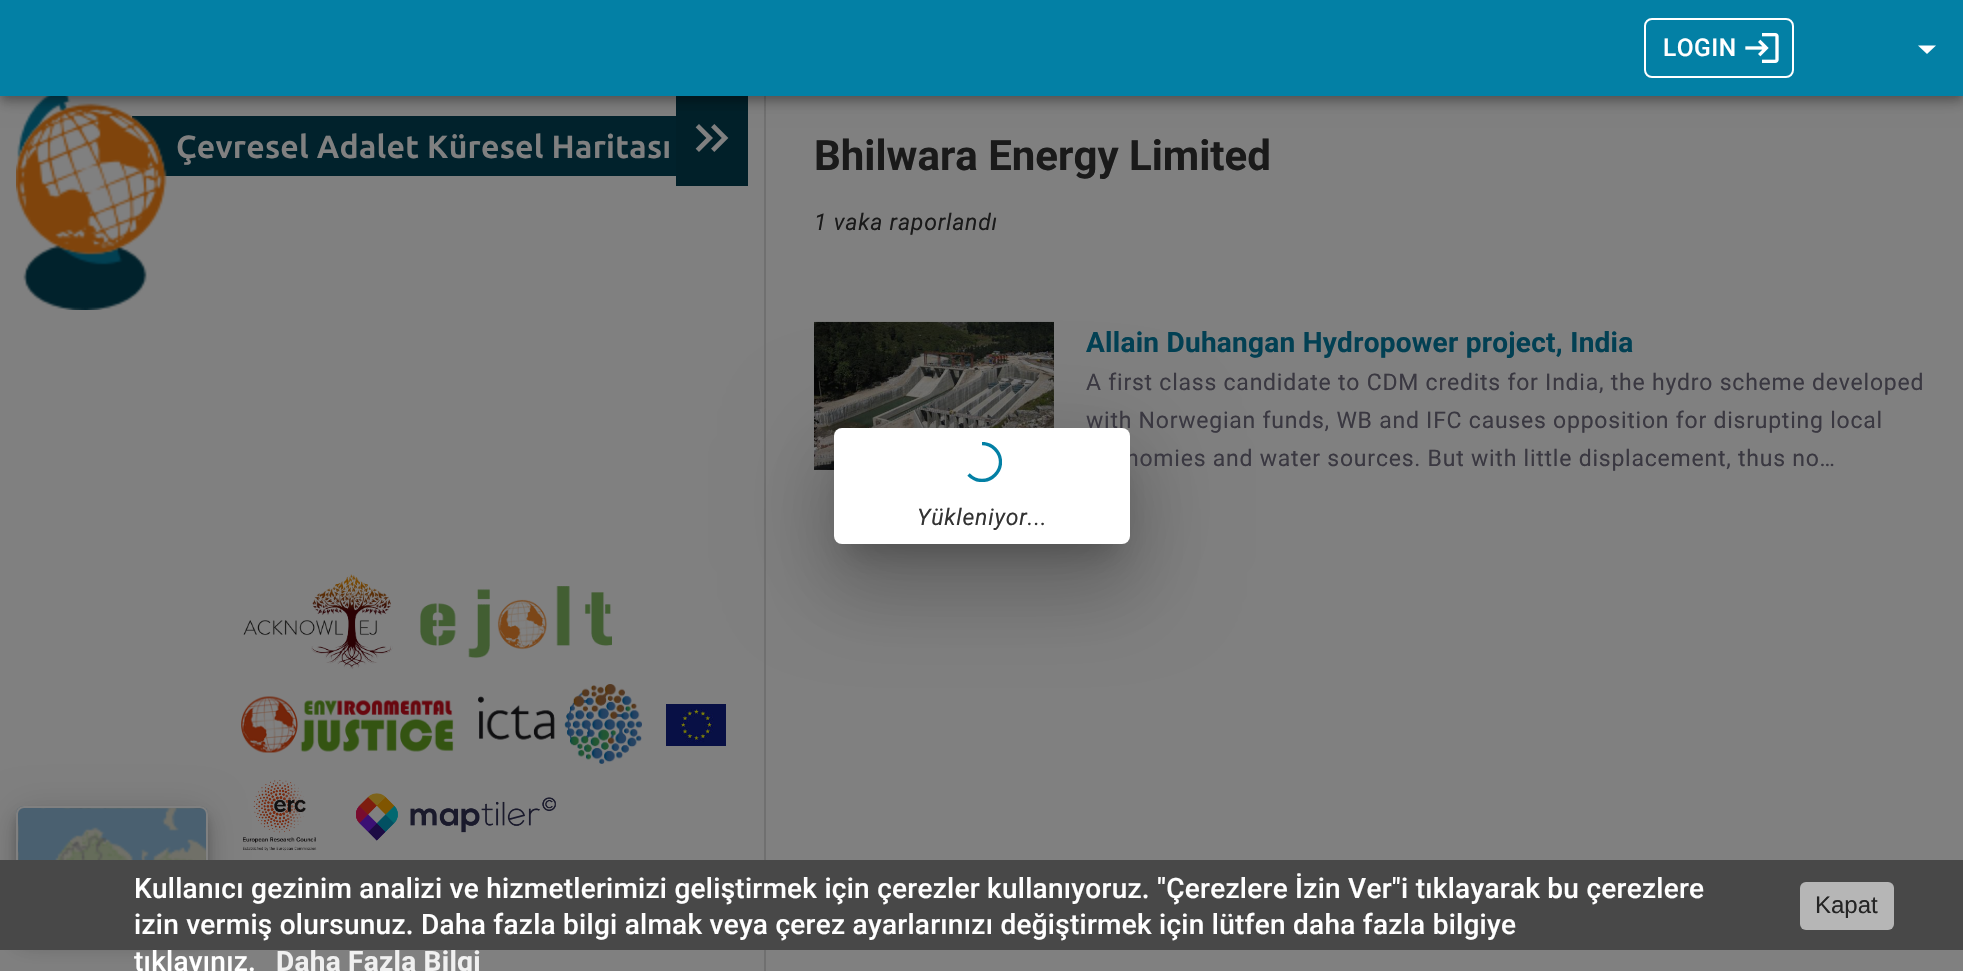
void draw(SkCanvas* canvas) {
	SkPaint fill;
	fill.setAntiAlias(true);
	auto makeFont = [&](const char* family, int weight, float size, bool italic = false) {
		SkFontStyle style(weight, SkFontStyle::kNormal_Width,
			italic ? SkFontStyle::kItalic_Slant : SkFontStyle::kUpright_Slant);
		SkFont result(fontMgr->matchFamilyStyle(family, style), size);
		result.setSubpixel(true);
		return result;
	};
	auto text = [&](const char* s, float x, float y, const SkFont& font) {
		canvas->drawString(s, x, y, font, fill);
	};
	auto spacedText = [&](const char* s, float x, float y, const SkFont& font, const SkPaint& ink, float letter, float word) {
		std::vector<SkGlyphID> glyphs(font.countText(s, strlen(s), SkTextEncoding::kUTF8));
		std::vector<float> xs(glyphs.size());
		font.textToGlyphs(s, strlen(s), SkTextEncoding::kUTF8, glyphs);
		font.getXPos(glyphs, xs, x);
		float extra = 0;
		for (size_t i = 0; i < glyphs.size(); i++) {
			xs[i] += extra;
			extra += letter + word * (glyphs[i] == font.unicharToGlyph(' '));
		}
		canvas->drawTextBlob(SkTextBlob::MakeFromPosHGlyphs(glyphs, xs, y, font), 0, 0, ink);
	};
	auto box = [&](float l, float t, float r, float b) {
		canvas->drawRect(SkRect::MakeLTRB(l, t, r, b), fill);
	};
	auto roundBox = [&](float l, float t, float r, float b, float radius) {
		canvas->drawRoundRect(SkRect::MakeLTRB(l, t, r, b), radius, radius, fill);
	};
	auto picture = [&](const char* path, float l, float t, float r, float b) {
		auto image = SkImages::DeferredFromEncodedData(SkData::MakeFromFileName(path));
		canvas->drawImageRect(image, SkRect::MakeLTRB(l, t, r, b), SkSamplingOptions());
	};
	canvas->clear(0xFF808080);
	fill.setColor(0xFF01222C);
	box(132, 116, 676, 176);
	picture("image1.png", 16, 96, 167, 310);
	fill.setColor(0xFF012029);
	box(676, 96, 748, 186);
	picture("image2.png", 695, 124, 729, 152);
	fill.setColor(0xFF707070);
	box(764, 96, 766, 971);
	fill.setColor(0x1F000000);
	fill.setMaskFilter(SkMaskFilter::MakeBlur(kNormal_SkBlurStyle, 10));
	canvas->drawRect(SkRect::MakeLTRB(0, 2, 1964, 98), fill);
	fill.setMaskFilter(nullptr);
	fill.setColor(0x24000000);
	fill.setMaskFilter(SkMaskFilter::MakeBlur(kNormal_SkBlurStyle, 5));
	canvas->drawRect(SkRect::MakeLTRB(0, 8, 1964, 104), fill);
	fill.setMaskFilter(nullptr);
	fill.setColor(0x33000000);
	fill.setMaskFilter(SkMaskFilter::MakeBlur(kNormal_SkBlurStyle, 4));
	canvas->drawRect(SkRect::MakeLTRB(2, 6, 1962, 98), fill);
	fill.setMaskFilter(nullptr);
	fill.setColor(0xFF0380A5);
	box(0, 0, 1963, 96);
	fill.setStyle(SkPaint::kStroke_Style);
	fill.setStrokeWidth(2);
	fill.setColor(0xFFFFFFFF);
	canvas->drawRoundRect(SkRect::MakeLTRB(1645, 19, 1793, 77), 7, 7, fill);
	picture("image0.png", 1745, 33, 1779, 63);
	fill.setStyle(SkPaint::kFill_Style);
	canvas->drawPath(SkPathBuilder().moveTo(1918, 45.5f).lineTo(1927, 54).lineTo(1936, 45.5f).close().detach(), fill);
	picture("image3.png", 814, 321, 1054, 470);
	picture("image10.png", 243, 780, 317, 851);
	fill.setColor(0x1F000000);
	fill.setMaskFilter(SkMaskFilter::MakeBlur(kNormal_SkBlurStyle, 18));
	canvas->drawRoundRect(SkRect::MakeLTRB(16, 808, 208, 936), 8, 8, fill);
	fill.setMaskFilter(nullptr);
	fill.setColor(0x24000000);
	fill.setMaskFilter(SkMaskFilter::MakeBlur(kNormal_SkBlurStyle, 10));
	canvas->drawRoundRect(SkRect::MakeLTRB(16, 818, 208, 946), 8, 8, fill);
	fill.setMaskFilter(nullptr);
	fill.setColor(0x33000000);
	fill.setMaskFilter(SkMaskFilter::MakeBlur(kNormal_SkBlurStyle, 5));
	canvas->drawRoundRect(SkRect::MakeLTRB(18, 814, 206, 938), 6, 6, fill);
	fill.setMaskFilter(nullptr);
	picture("image4.png", 16, 806, 208, 860);
	fill.setStyle(SkPaint::kStroke_Style);
	fill.setColor(0xFF808080);
	canvas->drawRoundRect(SkRect::MakeLTRB(17, 807, 207, 933), 7, 7, fill);
	picture("image5.png", 243, 574, 393, 669);
	picture("image6.png", 420, 586, 612, 658);
	picture("image7.png", 241, 696, 454, 753);
	picture("image8.png", 478, 684, 642, 764);
	picture("image9.png", 666, 704, 726, 746);
	picture("image11.png", 356, 793, 556, 841);
	fill.setStyle(SkPaint::kFill_Style);
	fill.setColor(0xFF484848);
	box(0, 860, 1963, 950);
	fill.setColor(0xFFB6B6B6);
	roundBox(1800, 882, 1894, 930, 6);
	fill.setColor(0x1F000000);
	fill.setMaskFilter(SkMaskFilter::MakeBlur(kNormal_SkBlurStyle, 46));
	canvas->drawRoundRect(SkRect::MakeLTRB(818, 430, 1146, 578), 24, 24, fill);
	fill.setMaskFilter(nullptr);
	fill.setColor(0x24000000);
	fill.setMaskFilter(SkMaskFilter::MakeBlur(kNormal_SkBlurStyle, 38));
	canvas->drawRoundRect(SkRect::MakeLTRB(828, 470, 1136, 598), 14, 14, fill);
	fill.setMaskFilter(nullptr);
	fill.setColor(0x33000000);
	fill.setMaskFilter(SkMaskFilter::MakeBlur(kNormal_SkBlurStyle, 15));
	canvas->drawRect(SkRect::MakeLTRB(848, 464, 1116, 552), fill);
	fill.setMaskFilter(nullptr);
	auto font1 = makeFont("Roboto", 500, 24.5f);
	fill.setColor(0xFFFFFFFF);
	spacedText("LOGIN", 1663, 56, font1, fill, 0.5f, 0);
	auto font2 = makeFont("Ubuntu", 700, 32);
	fill.setColor(0xFF808080);
	spacedText("Çevresel Adalet Küresel Haritası", 176, 158, font2, fill, 0.26f, 0);
	auto font3 = makeFont("Roboto", 700, 42);
	fill.setColor(0xFF1A1A1A);
	text("Bhilwara Energy Limited", 814, 170, font3);
	auto font4 = makeFont("Roboto", 400, 23, true);
	spacedText("1 vaka raporlandı", 814, 230, font4, fill, 0.77f, 0);
	auto font5 = makeFont("Roboto", 700, 28);
	fill.setColor(0xFF024053);
	spacedText("Allain Duhangan Hydropower project, India", 1086, 352, font5, fill, 0.26f, 0);
	auto font6 = makeFont("Roboto", 400, 23);
	fill.setColor(0xFF3A3841);
	spacedText("A first class candidate to CDM credits for India, the hydro scheme developed", 1086, 390, font6, fill, 0.77f, 0);
	spacedText("with Norwegian funds, WB and IFC causes opposition for disrupting local", 1086, 428, font6, fill, 0.77f, 0);
	spacedText("nomies and water sources. But with little displacement, thus no…", 1126, 466, font6, fill, 0.77f, 0);
	auto font7 = makeFont("Roboto", 500, 28);
	fill.setColor(0xFFFFFFFF);
	spacedText("Kullanıcı gezinim analizi ve hizmetlerimizi geliştirmek için çerezler kullanıyoruz. \"Çerezlere İzin Ver\"i tıklayarak bu çerezlere", 134, 898, font7, fill, 0.26f, 0);
	spacedText("izin vermiş olursunuz. Daha fazla bilgi almak veya çerez ayarlarınızı değiştirmek için lütfen daha fazla bilgiye", 134, 934, font7, fill, 0.26f, 0);
	spacedText("tıklayınız.", 134, 971, font7, fill, 0.26f, 0);
	fill.setColor(0xFFF0F0F0);
	spacedText("Daha Fazla Bilgi", 276, 971, font5, fill, 0.26f, 0);
	auto font8 = makeFont("Liberation Sans", 400, 24);
	fill.setColor(0xFF242424);
	text("Kapat", 1815, 913, font8);
	fill.setColor(0xFFFFFFFF);
	roundBox(834, 428, 1130, 544, 8);
	canvas->save();
	canvas->clipRect(SkRect::MakeLTRB(962, 442, 1002, 482));
	fill.setStyle(SkPaint::kStroke_Style);
	fill.setStrokeWidth(3.3f);
	fill.setColor(0xFF0380A5);
	canvas->drawPath(SkPathBuilder().moveTo(982, 443.5f).cubicTo(992, 443.5f, 1000.5f, 452, 1000.5f, 462).cubicTo(1000.5f, 472, 992, 480.5f, 982, 480.5f).cubicTo(976.5f, 480.5f, 972, 478, 968.5f, 474.5f).detach(), fill);
	canvas->restore();
	fill.setStyle(SkPaint::kFill_Style);
	fill.setColor(0xFF333333);
	spacedText("Yükleniyor...", 917, 525, font4, fill, 0.77f, 0);
}
